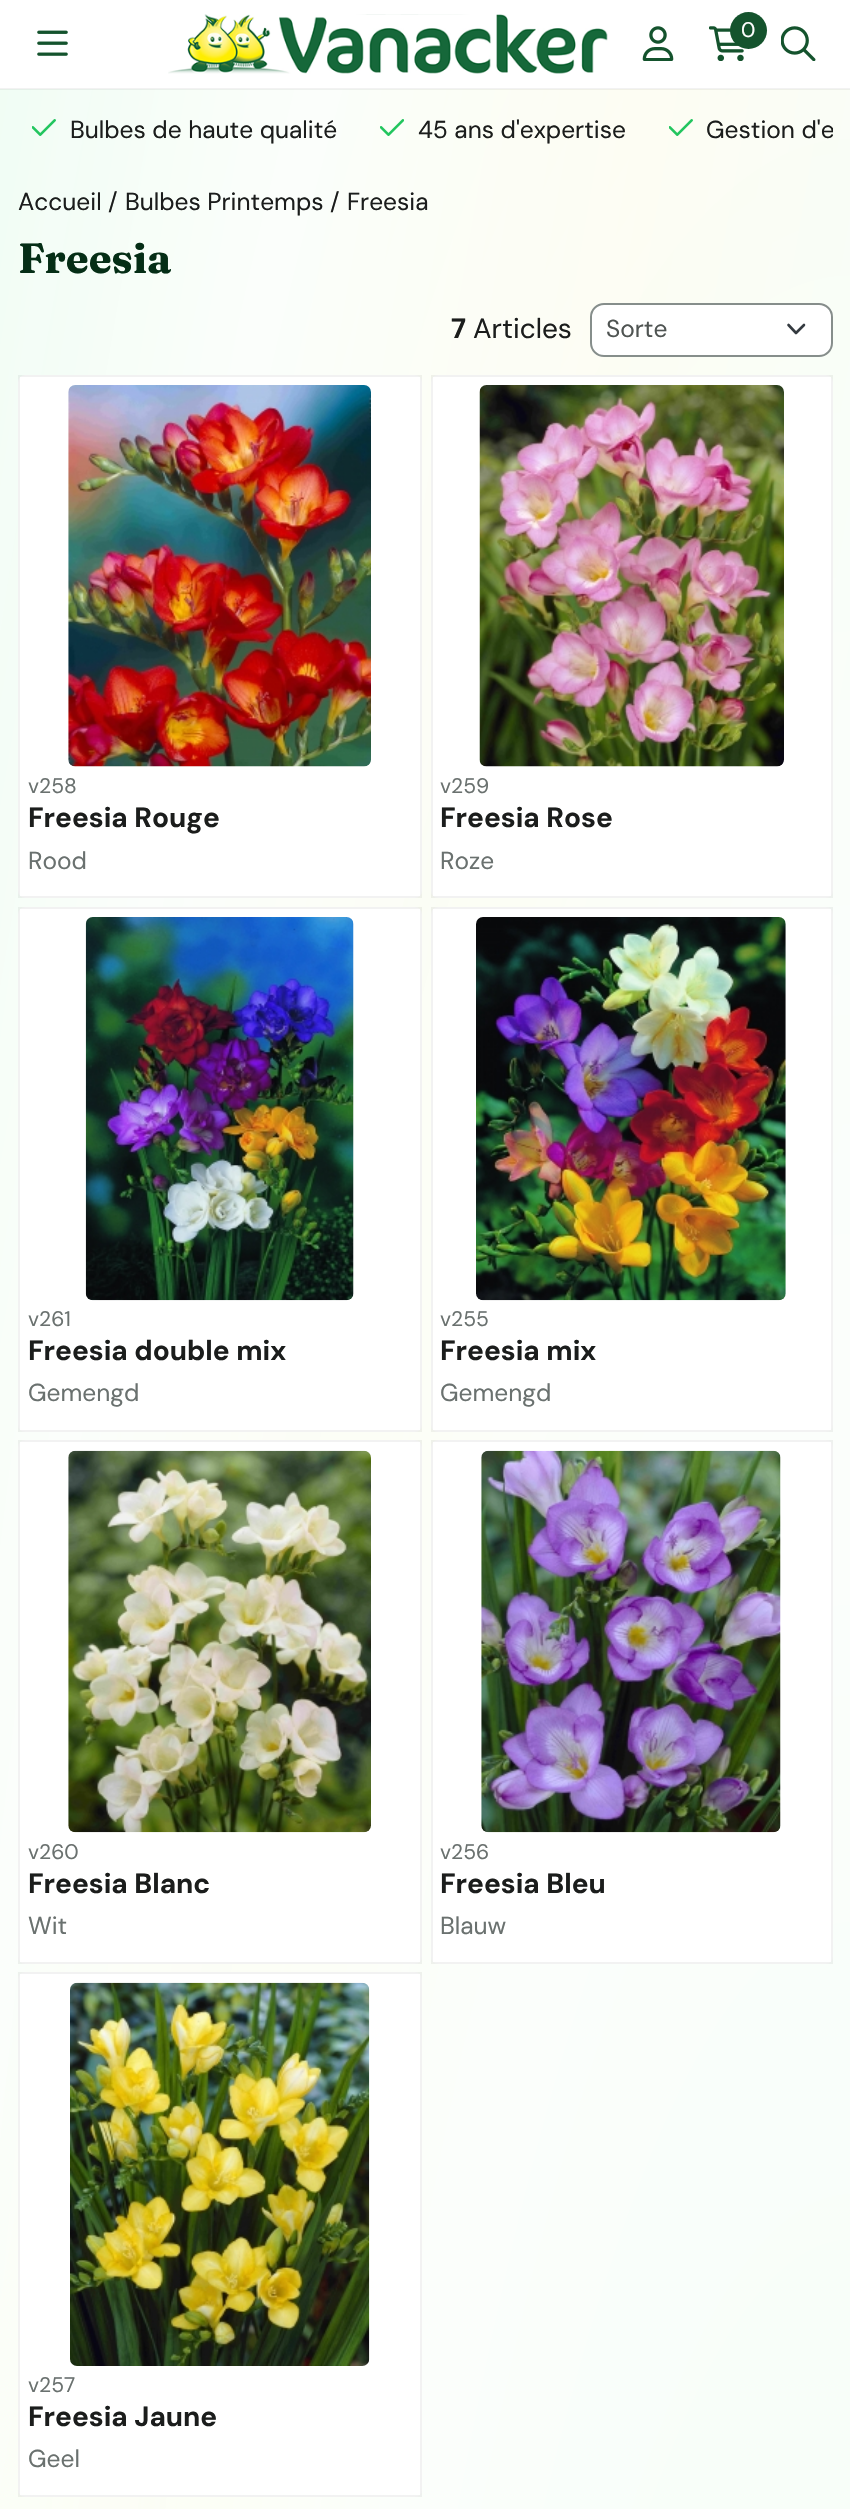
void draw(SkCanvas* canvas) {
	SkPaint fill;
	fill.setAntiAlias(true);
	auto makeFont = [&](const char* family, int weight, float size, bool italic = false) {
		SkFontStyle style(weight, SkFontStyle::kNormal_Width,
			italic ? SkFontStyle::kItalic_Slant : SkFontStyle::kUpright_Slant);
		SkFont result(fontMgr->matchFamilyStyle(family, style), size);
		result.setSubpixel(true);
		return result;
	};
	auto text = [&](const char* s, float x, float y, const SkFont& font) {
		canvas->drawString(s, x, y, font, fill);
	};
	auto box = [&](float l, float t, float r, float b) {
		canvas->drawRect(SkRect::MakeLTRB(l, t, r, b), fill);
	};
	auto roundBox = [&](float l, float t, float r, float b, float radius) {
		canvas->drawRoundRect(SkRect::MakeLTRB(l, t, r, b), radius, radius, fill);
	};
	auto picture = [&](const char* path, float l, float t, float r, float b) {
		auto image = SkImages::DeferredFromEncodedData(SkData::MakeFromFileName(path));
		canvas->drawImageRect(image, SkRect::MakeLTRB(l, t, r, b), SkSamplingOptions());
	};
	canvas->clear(0xFFFFFFFF);
	{
		const SkColor colors[] = {0xFFF0FDF4, 0xFFFBFEFB, 0xFFFEFDE6, 0xFFF0FDF4, 0xFFEFF6FF, 0xFFF0FDF4};
		const float stops[] = {0, 0.2f, 0.4f, 0.6f, 0.8f, 1};
		const SkPoint ends[] = {{-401, 2326}, {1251, 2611}};
		fill.setShader(SkGradientShader::MakeLinear(ends, colors, stops, 6, SkTileMode::kClamp));
		fill.setAlpha(255);
	}
	box(0, 89, 850, 2509);
	{
		const SkColor colors[] = {0xFFF0FDF4, 0xFFFBFEFB, 0x00FBFEFB};
		const float stops[] = {0, 0.5f, 1};
		SkMatrix m = SkMatrix::Translate(851, 4937).preScale(1203, 6982);
		fill.setShader(SkGradientShader::MakeRadial({0, 0}, 1, colors, stops, 3, SkTileMode::kClamp, 0, &m));
		fill.setAlpha(255);
	}
	box(0, 89, 850, 2509);
	fill.setShader(nullptr);
	fill.setColor(0x0D000000);
	box(0, 88, 850, 90);
	picture("image0.png", 37, 30, 68, 56);
	picture("image1.png", 168, 14, 608, 74);
	picture("image2.png", 642, 26, 674, 61);
	picture("image3.png", 709, 26, 744, 61);
	fill.setColor(0xFF14532D);
	canvas->drawCircle(748.5f, 30.5f, 18.5f, fill);
	picture("image4.png", 781, 26, 816, 61);
	picture("image5.png", 32, 119, 56, 136);
	picture("image6.png", 380, 119, 404, 136);
	picture("image7.png", 669, 119, 693, 136);
	fill.setColor(0xFFFFFFFF);
	roundBox(590, 303, 833, 357, 14);
	fill.setStyle(SkPaint::kStroke_Style);
	fill.setStrokeWidth(2.6f);
	fill.setStrokeCap(SkPaint::kRound_Cap);
	fill.setStrokeJoin(SkPaint::kRound_Join);
	fill.setColor(0xFF343A40);
	canvas->drawPath(SkPathBuilder().moveTo(788.5f, 325).lineTo(796, 333).lineTo(804, 325).detach(), fill);
	fill.setStrokeWidth(2);
	fill.setStrokeCap(SkPaint::kButt_Cap);
	fill.setStrokeJoin(SkPaint::kMiter_Join);
	fill.setColor(0xFF868E8B);
	canvas->drawRoundRect(SkRect::MakeLTRB(591, 304, 832, 356), 13, 13, fill);
	fill.setStyle(SkPaint::kFill_Style);
	fill.setColor(0xFFFFFFFF);
	roundBox(18, 375, 422, 898, 7);
	fill.setStyle(SkPaint::kStroke_Style);
	fill.setColor(0x0D000000);
	canvas->drawRect(SkRect::MakeLTRB(19, 376, 421, 897), fill);
	picture("image8.png", 68, 385, 371, 767);
	fill.setStyle(SkPaint::kFill_Style);
	fill.setColor(0xFFFFFFFF);
	roundBox(431, 375, 833, 898, 7);
	fill.setStyle(SkPaint::kStroke_Style);
	fill.setColor(0x0D000000);
	canvas->drawRect(SkRect::MakeLTRB(432, 376, 832, 897), fill);
	picture("image9.png", 479, 385, 784, 767);
	fill.setStyle(SkPaint::kFill_Style);
	fill.setColor(0xFFFFFFFF);
	roundBox(18, 907, 422, 1432, 7);
	fill.setStyle(SkPaint::kStroke_Style);
	fill.setColor(0x0D000000);
	canvas->drawRect(SkRect::MakeLTRB(19, 908, 421, 1431), fill);
	picture("image10.png", 85, 917, 354, 1301);
	fill.setStyle(SkPaint::kFill_Style);
	fill.setColor(0xFFFFFFFF);
	roundBox(431, 907, 833, 1432, 7);
	fill.setStyle(SkPaint::kStroke_Style);
	fill.setColor(0x0D000000);
	canvas->drawRect(SkRect::MakeLTRB(432, 908, 832, 1431), fill);
	picture("image11.png", 476, 917, 786, 1301);
	fill.setStyle(SkPaint::kFill_Style);
	fill.setColor(0xFFFFFFFF);
	roundBox(18, 1440, 422, 1964, 7);
	fill.setStyle(SkPaint::kStroke_Style);
	fill.setColor(0x0D000000);
	canvas->drawRect(SkRect::MakeLTRB(19, 1441, 421, 1963), fill);
	picture("image12.png", 68, 1450, 371, 1833);
	fill.setStyle(SkPaint::kFill_Style);
	fill.setColor(0xFFFFFFFF);
	roundBox(431, 1440, 833, 1964, 7);
	fill.setStyle(SkPaint::kStroke_Style);
	fill.setColor(0x0D000000);
	canvas->drawRect(SkRect::MakeLTRB(432, 1441, 832, 1963), fill);
	picture("image13.png", 481, 1450, 781, 1833);
	fill.setStyle(SkPaint::kFill_Style);
	fill.setColor(0xFFFFFFFF);
	roundBox(18, 1972, 422, 2497, 7);
	fill.setStyle(SkPaint::kStroke_Style);
	fill.setColor(0x0D000000);
	canvas->drawRect(SkRect::MakeLTRB(19, 1973, 421, 2496), fill);
	picture("image14.png", 70, 1982, 370, 2366);
	auto font1 = makeFont("DM Sans", 400, 21);
	fill.setStyle(SkPaint::kFill_Style);
	fill.setColor(0xFFFFFFFF);
	text("0", 741, 37, font1);
	auto font2 = makeFont("DM Sans", 400, 24.5f);
	fill.setColor(0xFF1B1D1C);
	text("Bulbes de haute qualité", 70, 138, font2);
	text("45 ans d'expertise", 418, 138, font2);
	canvas->save();
	canvas->clipRect(SkRect::MakeLTRB(18, 89, 833, 170));
	text("Gestion d'e", 706, 138, font2);
	canvas->restore();
	text("Accueil", 18, 210, font2);
	text("/", 108, 210, font2);
	text("Bulbes Printemps", 125, 210, font2);
	text("/", 330, 210, font2);
	text("Freesia", 347, 210, font2);
	auto font3 = makeFont("Fraunces", 700, 42);
	fill.setColor(0xFF052E16);
	text("Freesia", 18, 273, font3);
	auto font4 = makeFont("DM Sans", 700, 28);
	fill.setColor(0xFF1B1D1C);
	text("7", 451, 338, font4);
	auto font5 = makeFont("DM Sans", 400, 28);
	text("Articles", 473, 338, font5);
	fill.setColor(0xFF4F5452);
	text("Sorte", 606, 337, font2);
	fill.setColor(0xFF6A716F);
	text("v258", 28, 793, font1);
	fill.setColor(0xFF1B1D1C);
	text("Freesia Rouge", 28, 827, font4);
	fill.setColor(0xFF6A716F);
	text("Rood", 28, 869, font2);
	text("v259", 440, 793, font1);
	fill.setColor(0xFF1B1D1C);
	text("Freesia Rose", 440, 827, font4);
	fill.setColor(0xFF6A716F);
	text("Roze", 440, 869, font2);
	text("v261", 28, 1326, font1);
	fill.setColor(0xFF1B1D1C);
	text("Freesia double mix", 28, 1360, font4);
	fill.setColor(0xFF6A716F);
	text("Gemengd", 28, 1401, font2);
	text("v255", 440, 1326, font1);
	fill.setColor(0xFF1B1D1C);
	text("Freesia mix", 440, 1360, font4);
	fill.setColor(0xFF6A716F);
	text("Gemengd", 440, 1401, font2);
	text("v260", 28, 1859, font1);
	fill.setColor(0xFF1B1D1C);
	text("Freesia Blanc", 28, 1893, font4);
	fill.setColor(0xFF6A716F);
	text("Wit", 28, 1934, font2);
	text("v256", 440, 1859, font1);
	fill.setColor(0xFF1B1D1C);
	text("Freesia Bleu", 440, 1893, font4);
	fill.setColor(0xFF6A716F);
	text("Blauw", 440, 1934, font2);
	text("v257", 28, 2392, font1);
	fill.setColor(0xFF1B1D1C);
	text("Freesia Jaune", 28, 2426, font4);
	fill.setColor(0xFF6A716F);
	text("Geel", 28, 2467, font2);
}
